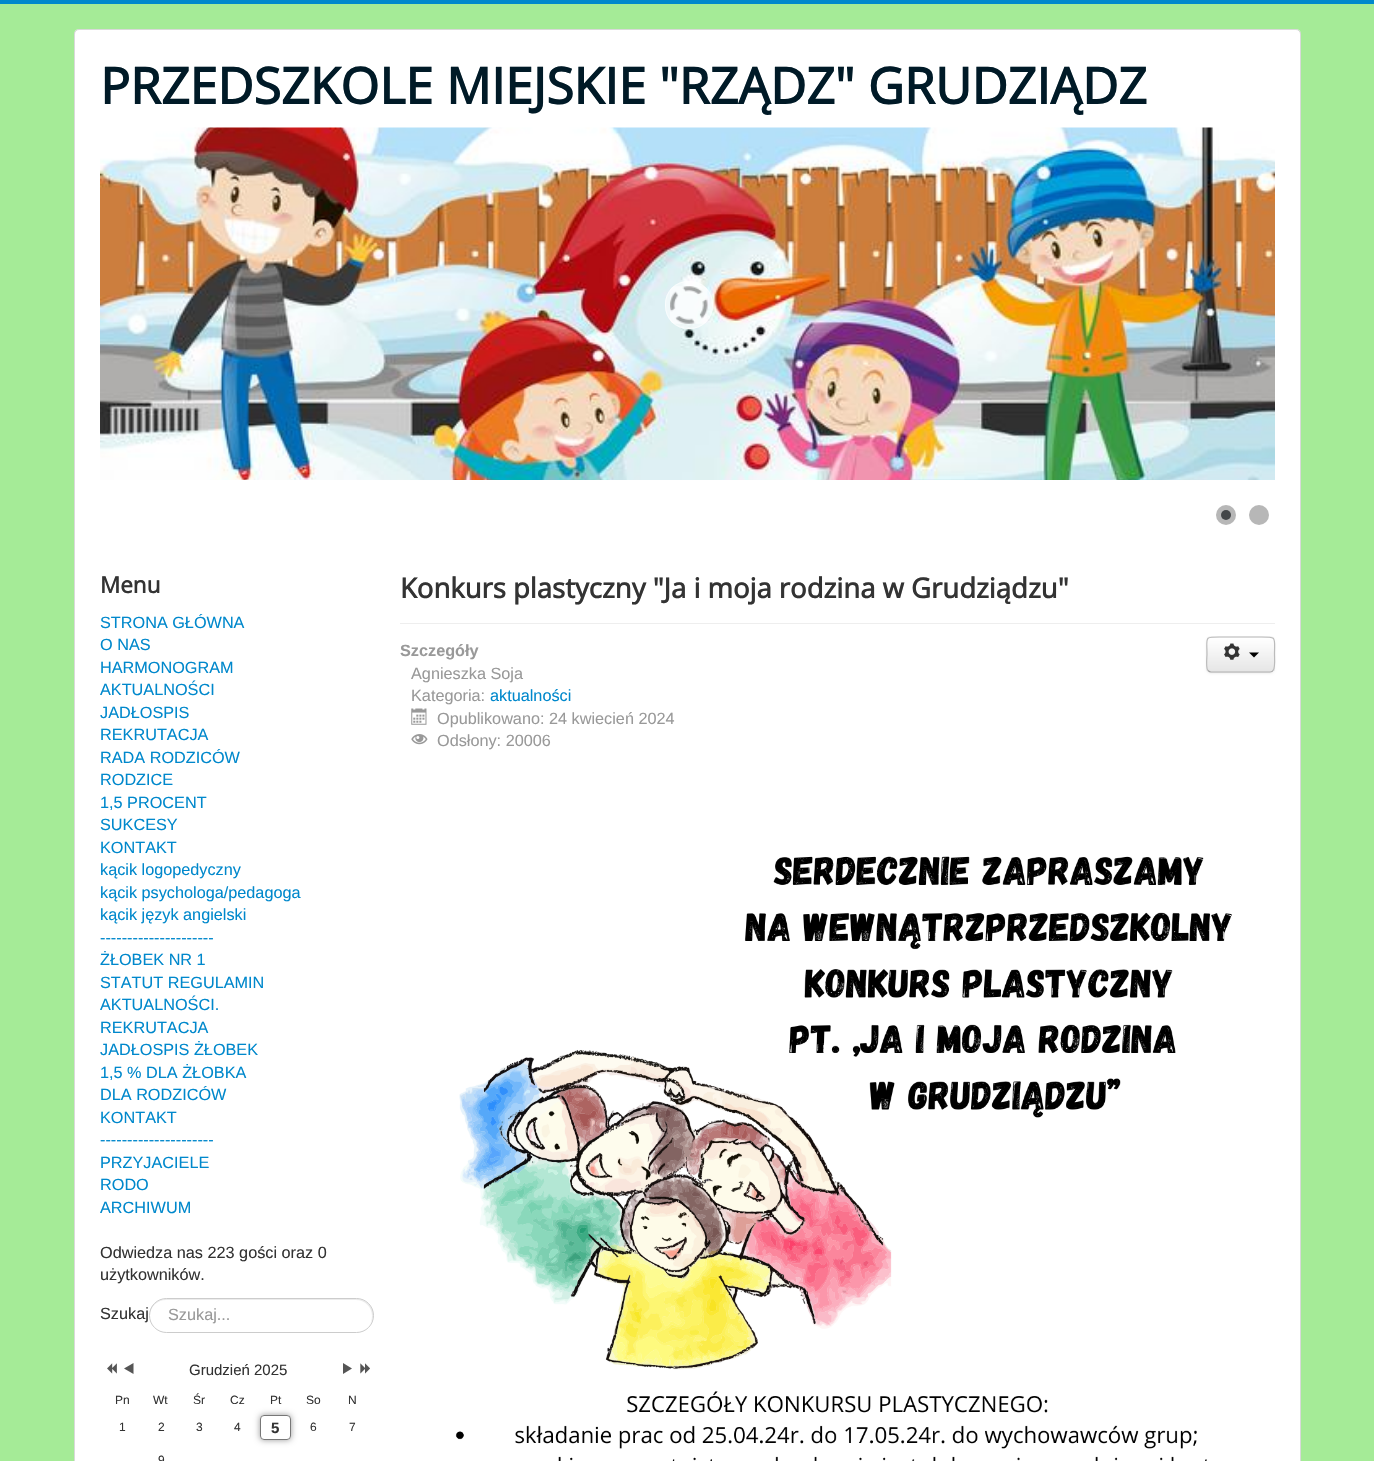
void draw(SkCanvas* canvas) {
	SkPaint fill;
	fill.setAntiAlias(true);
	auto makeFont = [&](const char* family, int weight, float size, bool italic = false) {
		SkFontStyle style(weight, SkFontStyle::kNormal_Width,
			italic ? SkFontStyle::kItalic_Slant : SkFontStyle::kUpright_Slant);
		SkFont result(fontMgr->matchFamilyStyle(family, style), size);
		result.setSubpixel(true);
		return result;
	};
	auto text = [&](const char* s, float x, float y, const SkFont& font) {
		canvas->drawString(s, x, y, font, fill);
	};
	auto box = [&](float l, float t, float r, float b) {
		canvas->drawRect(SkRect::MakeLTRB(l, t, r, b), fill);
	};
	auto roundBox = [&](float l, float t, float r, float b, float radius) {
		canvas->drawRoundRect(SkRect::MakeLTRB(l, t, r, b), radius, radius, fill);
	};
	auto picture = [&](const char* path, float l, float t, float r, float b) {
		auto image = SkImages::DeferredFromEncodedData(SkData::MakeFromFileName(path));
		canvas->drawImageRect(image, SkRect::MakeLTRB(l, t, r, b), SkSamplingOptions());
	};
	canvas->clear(0xFFA5EB97);
	fill.setColor(0xFF0088CC);
	box(0, 0, 1374, 4);
	fill.setColor(0xFFFFFFFF);
	roundBox(74, 29, 1301, 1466, 5);
	fill.setStyle(SkPaint::kStroke_Style);
	fill.setStrokeWidth(1);
	fill.setColor(0x26000000);
	canvas->drawRoundRect(SkRect::MakeLTRB(74.5f, 29.5f, 1300.5f, 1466.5f), 4.5f, 4.5f, fill);
	picture("image0.png", 100, 127, 1275, 480);
	fill.setStyle(SkPaint::kFill_Style);
	fill.setColor(0x8AFFFFFF);
	roundBox(665, 281, 713, 329, 23);
	picture("image1.png", 670, 286, 708, 324);
	fill.setStyle(SkPaint::kStroke_Style);
	fill.setColor(0x99FFFFFF);
	canvas->drawRoundRect(SkRect::MakeLTRB(665.5f, 281.5f, 712.5f, 328.5f), 22.5f, 22.5f, fill);
	fill.setStyle(SkPaint::kFill_Style);
	fill.setColor(0xFFB7B7B7);
	canvas->drawCircle(1226, 515, 10, fill);
	fill.setColor(0xFF434648);
	canvas->drawCircle(1226, 515, 5, fill);
	fill.setColor(0xFFB7B7B7);
	canvas->drawCircle(1259, 515, 10, fill);
	fill.setColor(0xFFECECEC);
	canvas->drawPath(SkPathBuilder().moveTo(166, 1300).lineTo(356, 1300).cubicTo(365, 1300, 372, 1307, 372, 1316).cubicTo(372, 1320, 371, 1323, 368, 1326).cubicTo(372, 1322, 374, 1317, 373, 1312).cubicTo(371, 1304, 364, 1299, 357, 1299).lineTo(198, 1299).cubicTo(187, 1299, 149, 1292, 150, 1315).cubicTo(150, 1307, 157, 1300, 166, 1300).close().detach(), fill);
	fill.setStyle(SkPaint::kStroke_Style);
	fill.setColor(0xFFCCCCCC);
	canvas->drawRoundRect(SkRect::MakeLTRB(149.5f, 1298.5f, 373.5f, 1332.5f), 17, 17, fill);
	picture("image2.png", 107, 1363, 117, 1374);
	fill.setStyle(SkPaint::kFill_Style);
	fill.setColor(0xFF555555);
	canvas->drawPath(SkPathBuilder().moveTo(133.5f, 1374).lineTo(124, 1368.5f).lineTo(133.5f, 1363).close().detach(), fill);
	canvas->drawPath(SkPathBuilder().moveTo(343, 1363).lineTo(352, 1368.5f).lineTo(343, 1374).close().detach(), fill);
	picture("image3.png", 360, 1363, 370, 1374);
	canvas->save();
	canvas->clipPath(SkPathBuilder(SkPathFillType::kEvenOdd).moveTo(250, 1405).lineTo(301, 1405).lineTo(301, 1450).lineTo(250, 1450).close().moveTo(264, 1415).lineTo(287, 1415).cubicTo(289, 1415, 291, 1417, 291, 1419).lineTo(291, 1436).cubicTo(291, 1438, 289, 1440, 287, 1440).lineTo(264, 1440).cubicTo(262, 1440, 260, 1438, 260, 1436).lineTo(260, 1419).cubicTo(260, 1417, 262, 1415, 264, 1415).close().detach(), true);
	fill.setColor(0xFF999999);
	fill.setMaskFilter(SkMaskFilter::MakeBlur(kNormal_SkBlurStyle, 3));
	canvas->drawRoundRect(SkRect::MakeLTRB(260, 1415, 291, 1440), 4, 4, fill);
	fill.setMaskFilter(nullptr);
	canvas->restore();
	fill.setStyle(SkPaint::kStroke_Style);
	fill.setColor(0xFF777777);
	canvas->drawRoundRect(SkRect::MakeLTRB(260.5f, 1415.5f, 290.5f, 1439.5f), 3.5f, 3.5f, fill);
	fill.setStyle(SkPaint::kFill_Style);
	fill.setColor(0xFFEEEEEE);
	box(400, 623, 1275, 624);
	picture("image4.png", 411, 708, 427, 725);
	picture("image5.png", 411, 734, 428, 745);
	fill.setColor(0x0D000000);
	fill.setMaskFilter(SkMaskFilter::MakeBlur(kNormal_SkBlurStyle, 1));
	canvas->drawRoundRect(SkRect::MakeLTRB(1206, 638, 1275, 674), 5, 5, fill);
	fill.setMaskFilter(nullptr);
	fill.setColor(0xFFF5F5F5);
	roundBox(1206, 636, 1275, 673, 5);
	canvas->save();
	canvas->clipPath(SkPathBuilder().moveTo(1211, 636).lineTo(1270, 636).cubicTo(1273, 636, 1275, 638, 1275, 641).lineTo(1275, 668).cubicTo(1275, 671, 1273, 673, 1270, 673).lineTo(1211, 673).cubicTo(1208, 673, 1206, 671, 1206, 668).lineTo(1206, 641).cubicTo(1206, 638, 1208, 636, 1211, 636).close().detach(), true);
	{
		const SkColor colors[] = {0xFFFFFFFF, 0xFFE6E6E6};
		const float stops[] = {0, 1};
		const SkPoint ends[] = {{1241, 638}, {1241, 671}};
		fill.setShader(SkGradientShader::MakeLinear(ends, colors, stops, 2, SkTileMode::kClamp));
		fill.setAlpha(255);
	}
	box(1206, 638, 1275, 671);
	canvas->restore();
	fill.setStyle(SkPaint::kStroke_Style);
	fill.setStrokeWidth(1.2f);
	fill.setShader(nullptr);
	fill.setColor(0xFFA2A2A2);
	canvas->drawPath(SkPathBuilder().moveTo(1273, 670.5f).cubicTo(1272.5f, 671.5f, 1271, 672, 1270, 672).lineTo(1211, 672).cubicTo(1210, 672, 1209, 671.5f, 1208, 670.5f).detach(), fill);
	fill.setColor(0xFFBBBBBB);
	canvas->drawPath(SkPathBuilder().moveTo(1208, 670.5f).cubicTo(1205.5f, 668, 1207, 657.5f, 1207, 654.5f).cubicTo(1207, 636.5f, 1203.5f, 637, 1221, 637).lineTo(1260, 637).cubicTo(1277.5f, 637, 1274.5f, 636.5f, 1274.5f, 654.5f).cubicTo(1274.5f, 657.5f, 1275.5f, 668, 1273, 670.5f).detach(), fill);
	picture("image6.png", 1224, 643, 1240, 660);
	fill.setStyle(SkPaint::kFill_Style);
	fill.setColor(0xFF000000);
	canvas->drawPath(SkPathBuilder().moveTo(1249, 652.5f).lineTo(1259, 652.5f).lineTo(1254, 657.5f).close().detach(), fill);
	picture("image7.png", 455, 856, 1232, 1461);
	auto font1 = makeFont("Open Sans", 700, 50);
	fill.setColor(0xFF001A27);
	text("PRZEDSZKOLE MIEJSKIE \"RZĄDZ\" GRUDZIĄDZ", 100, 104, font1);
	auto font2 = makeFont("Open Sans", 700, 22.5f);
	fill.setColor(0xFF333333);
	text("Menu", 100, 593, font2);
	auto font3 = makeFont("Liberation Sans", 400, 16.25f);
	fill.setColor(0xFF0088CC);
	text("STRONA GŁÓWNA", 100, 628, font3);
	text("O NAS", 100, 650, font3);
	text("HARMONOGRAM", 100, 673, font3);
	text("AKTUALNOŚCI", 100, 695, font3);
	text("JADŁOSPIS", 100, 718, font3);
	text("REKRUTACJA", 100, 740, font3);
	text("RADA RODZICÓW", 100, 763, font3);
	text("RODZICE", 100, 785, font3);
	text("1,5 PROCENT", 100, 808, font3);
	text("SUKCESY", 100, 830, font3);
	text("KONTAKT", 100, 853, font3);
	text("kącik logopedyczny", 100, 875, font3);
	text("kącik psychologa/pedagoga", 100, 898, font3);
	text("kącik język angielski", 100, 920, font3);
	text("---------------------", 100, 943, font3);
	text("ŻŁOBEK NR 1", 100, 965, font3);
	text("STATUT REGULAMIN", 100, 988, font3);
	text("AKTUALNOŚCI.", 100, 1010, font3);
	text("REKRUTACJA", 100, 1033, font3);
	text("JADŁOSPIS ŻŁOBEK", 100, 1055, font3);
	text("1,5 % DLA ŻŁOBKA", 100, 1078, font3);
	text("DLA RODZICÓW", 100, 1100, font3);
	text("KONTAKT", 100, 1123, font3);
	text("---------------------", 100, 1145, font3);
	text("PRZYJACIELE", 100, 1168, font3);
	text("RODO", 100, 1190, font3);
	text("ARCHIWUM", 100, 1213, font3);
	fill.setColor(0xFF333333);
	text("Odwiedza nas 223 gości oraz 0", 100, 1258, font3);
	text("użytkowników.", 100, 1280, font3);
	text("Szukaj", 100, 1319, font3);
	fill.setColor(0xFF999999);
	text("Szukaj...", 168, 1320, font3);
	auto font4 = makeFont("Liberation Sans", 400, 15);
	fill.setColor(0xFF333333);
	text("Grudzień 2025", 189, 1375, font4);
	auto font5 = makeFont("Liberation Sans", 400, 12);
	text("Pn", 115, 1404, font5);
	text("Wt", 153, 1404, font5);
	text("Śr", 193, 1404, font5);
	text("Cz", 230, 1404, font5);
	text("Pt", 270, 1404, font5);
	text("So", 306, 1404, font5);
	text("N", 348, 1404, font5);
	text("1", 119, 1431, font5);
	text("2", 158, 1431, font5);
	text("3", 196, 1431, font5);
	text("4", 234, 1431, font5);
	auto font6 = makeFont("Liberation Sans", 700, 15);
	text("5", 271, 1433, font6);
	text("6", 310, 1431, font5);
	text("7", 349, 1431, font5);
	text("9", 158, 1464, font5);
	auto font7 = makeFont("Open Sans", 700, 27.5f);
	text("Konkurs plastyczny \"Ja i moja rodzina w Grudziądzu\"", 400, 598, font7);
	auto font8 = makeFont("Liberation Sans", 700, 16.25f);
	fill.setColor(0xFF999999);
	text("Szczegóły", 400, 656, font8);
	text("Agnieszka Soja", 411, 679, font3);
	text("Kategoria:", 411, 701, font3);
	fill.setColor(0xFF0088CC);
	text("aktualności", 490, 701, font3);
	fill.setColor(0xFF999999);
	text("Opublikowano: 24 kwiecień 2024", 437, 724, font3);
	text("Odsłony: 20006", 437, 746, font3);
}
